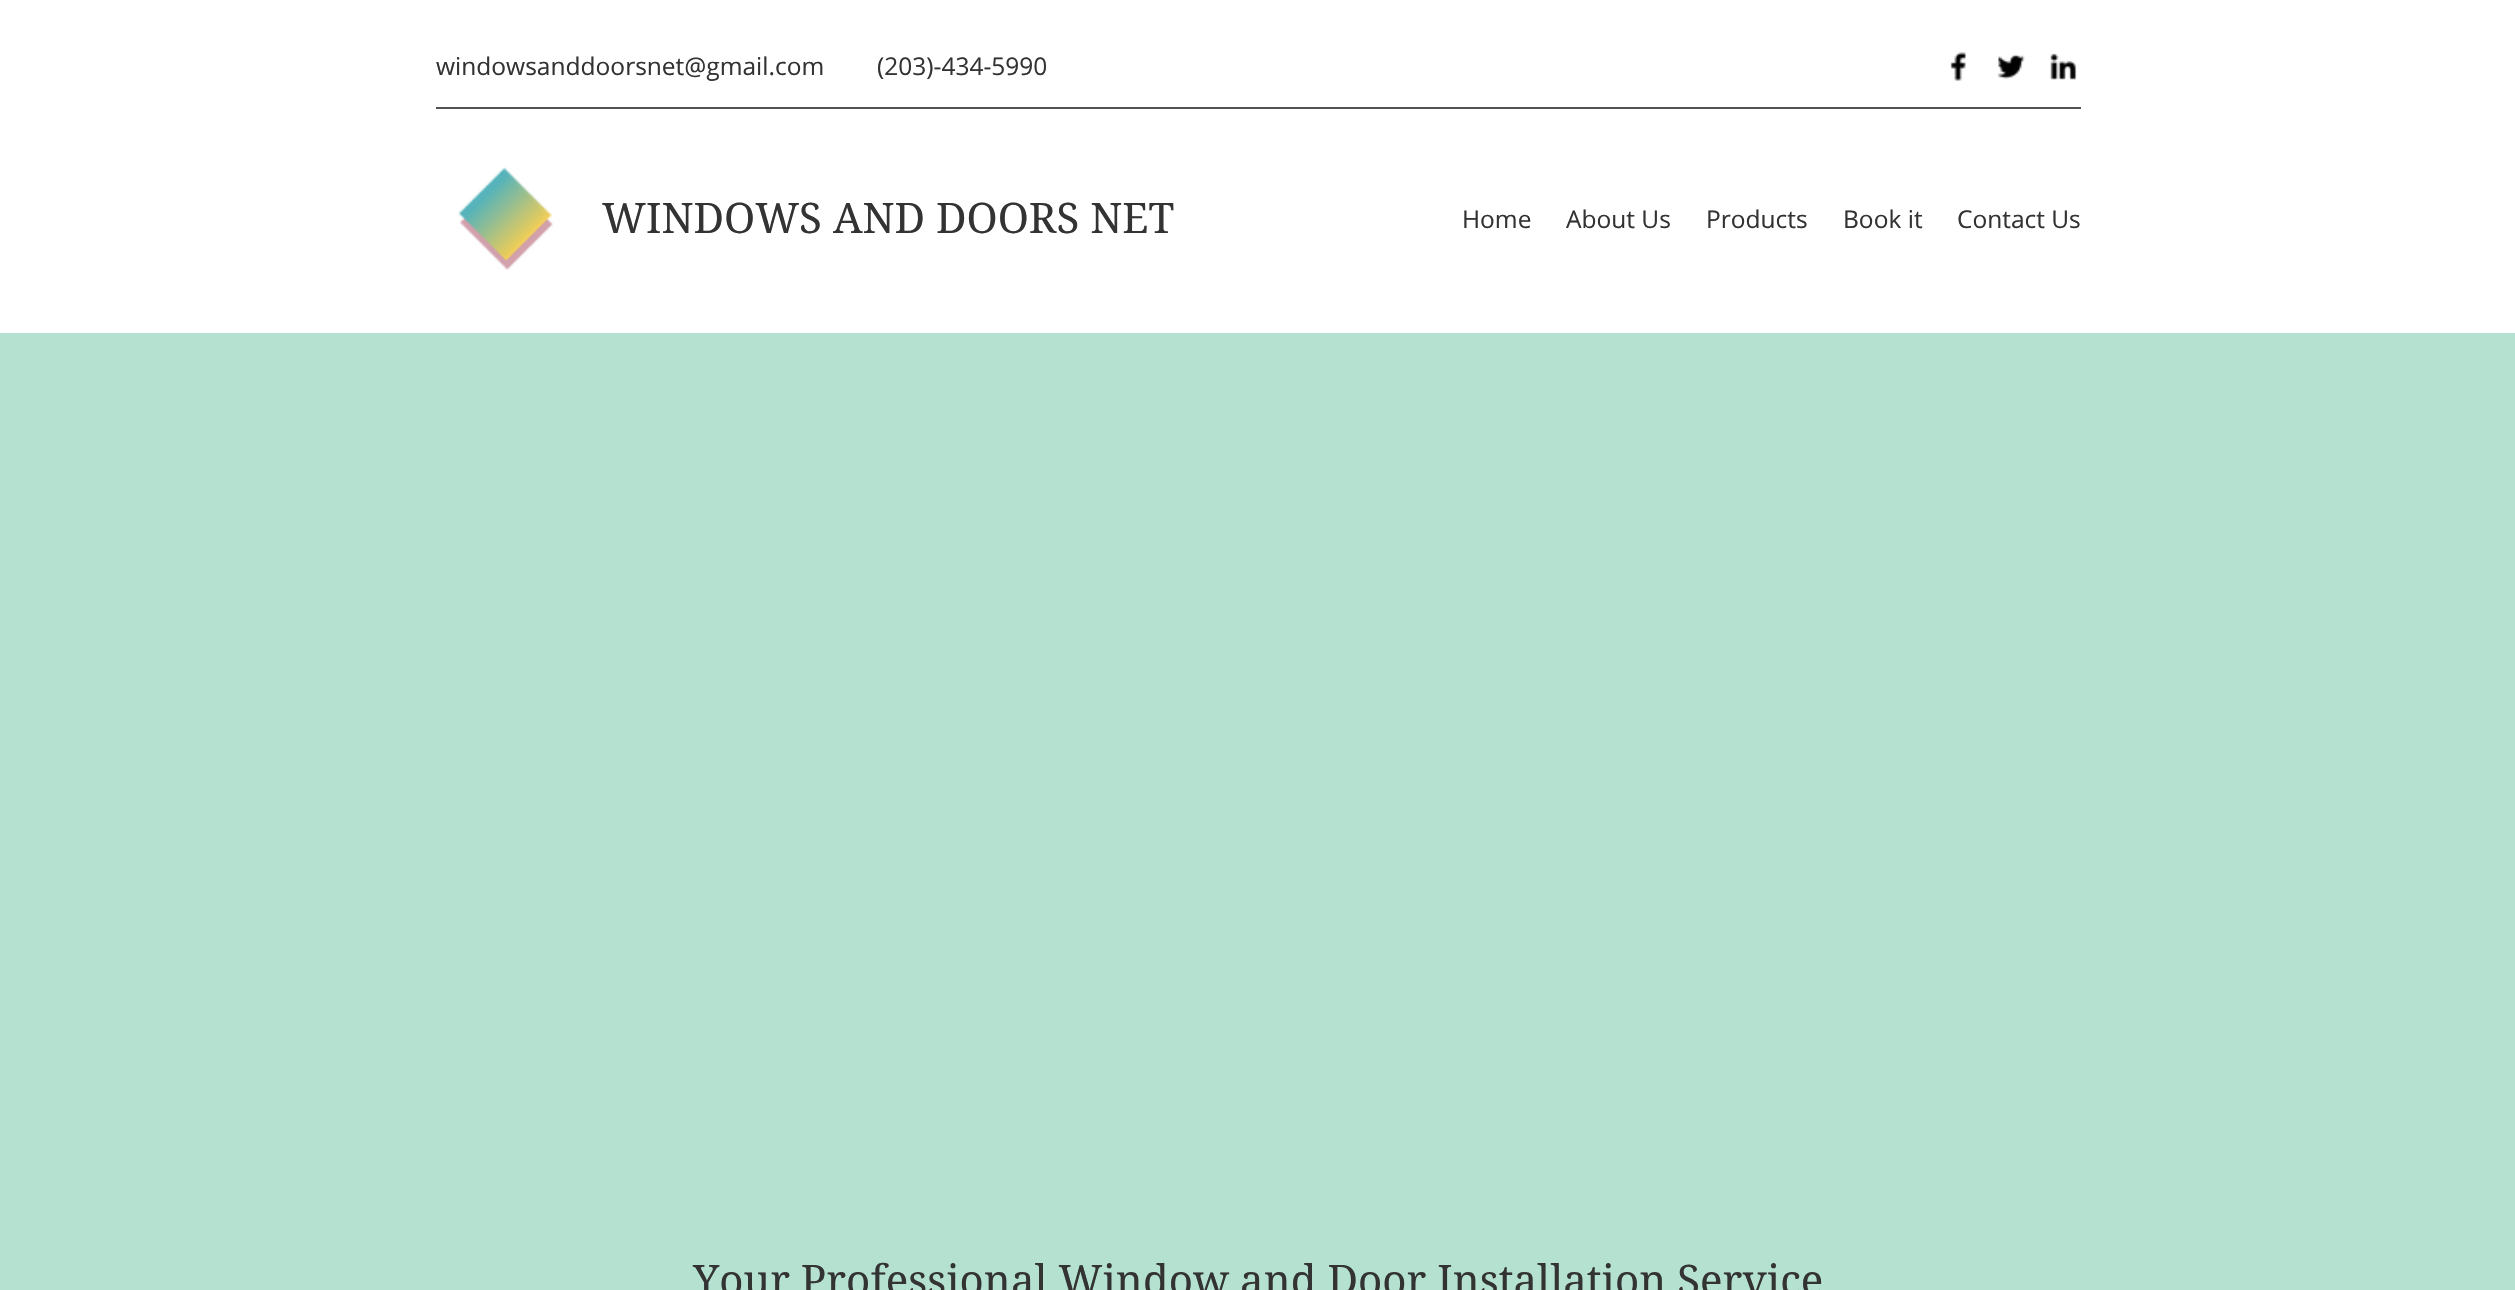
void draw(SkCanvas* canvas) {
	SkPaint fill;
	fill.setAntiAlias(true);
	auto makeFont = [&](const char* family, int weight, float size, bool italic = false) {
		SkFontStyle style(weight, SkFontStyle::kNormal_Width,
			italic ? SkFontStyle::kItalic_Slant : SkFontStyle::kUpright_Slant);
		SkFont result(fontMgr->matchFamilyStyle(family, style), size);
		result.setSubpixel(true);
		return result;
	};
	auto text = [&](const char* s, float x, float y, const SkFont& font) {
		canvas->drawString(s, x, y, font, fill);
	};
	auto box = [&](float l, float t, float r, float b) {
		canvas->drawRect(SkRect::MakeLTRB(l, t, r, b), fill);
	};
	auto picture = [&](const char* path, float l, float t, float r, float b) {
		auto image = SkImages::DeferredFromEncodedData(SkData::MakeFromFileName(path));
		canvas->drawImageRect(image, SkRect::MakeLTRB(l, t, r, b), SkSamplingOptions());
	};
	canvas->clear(0xFFFFFFFF);
	picture("image0.png", 1950, 52, 1967, 81);
	picture("image1.png", 1997, 54, 2025, 80);
	picture("image2.png", 2050, 53, 2077, 80);
	fill.setColor(0xFF525252);
	box(436, 107, 2081, 109);
	picture("image3.png", 458, 167, 554, 270);
	fill.setColor(0xFFB4E1D0);
	box(0, 333, 2515, 1290);
	auto font1 = makeFont("Open Sans", 400, 24.5f);
	fill.setColor(0xFF333333);
	text("windowsanddoorsnet@gmail.com", 436, 75, font1);
	text("(203)-434-5990", 877, 75, font1);
	auto font2 = makeFont("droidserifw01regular", 400, 42);
	text("WINDOWS AND DOORS NET", 602, 233, font2);
	text("Home", 1462, 228, font1);
	text("About Us", 1566, 228, font1);
	text("Products", 1706, 228, font1);
	text("Book it", 1843, 228, font1);
	text("Contact Us", 1957, 228, font1);
	text("Your Professional Window and Door Installation Service", 693, 1295, font2);
}
